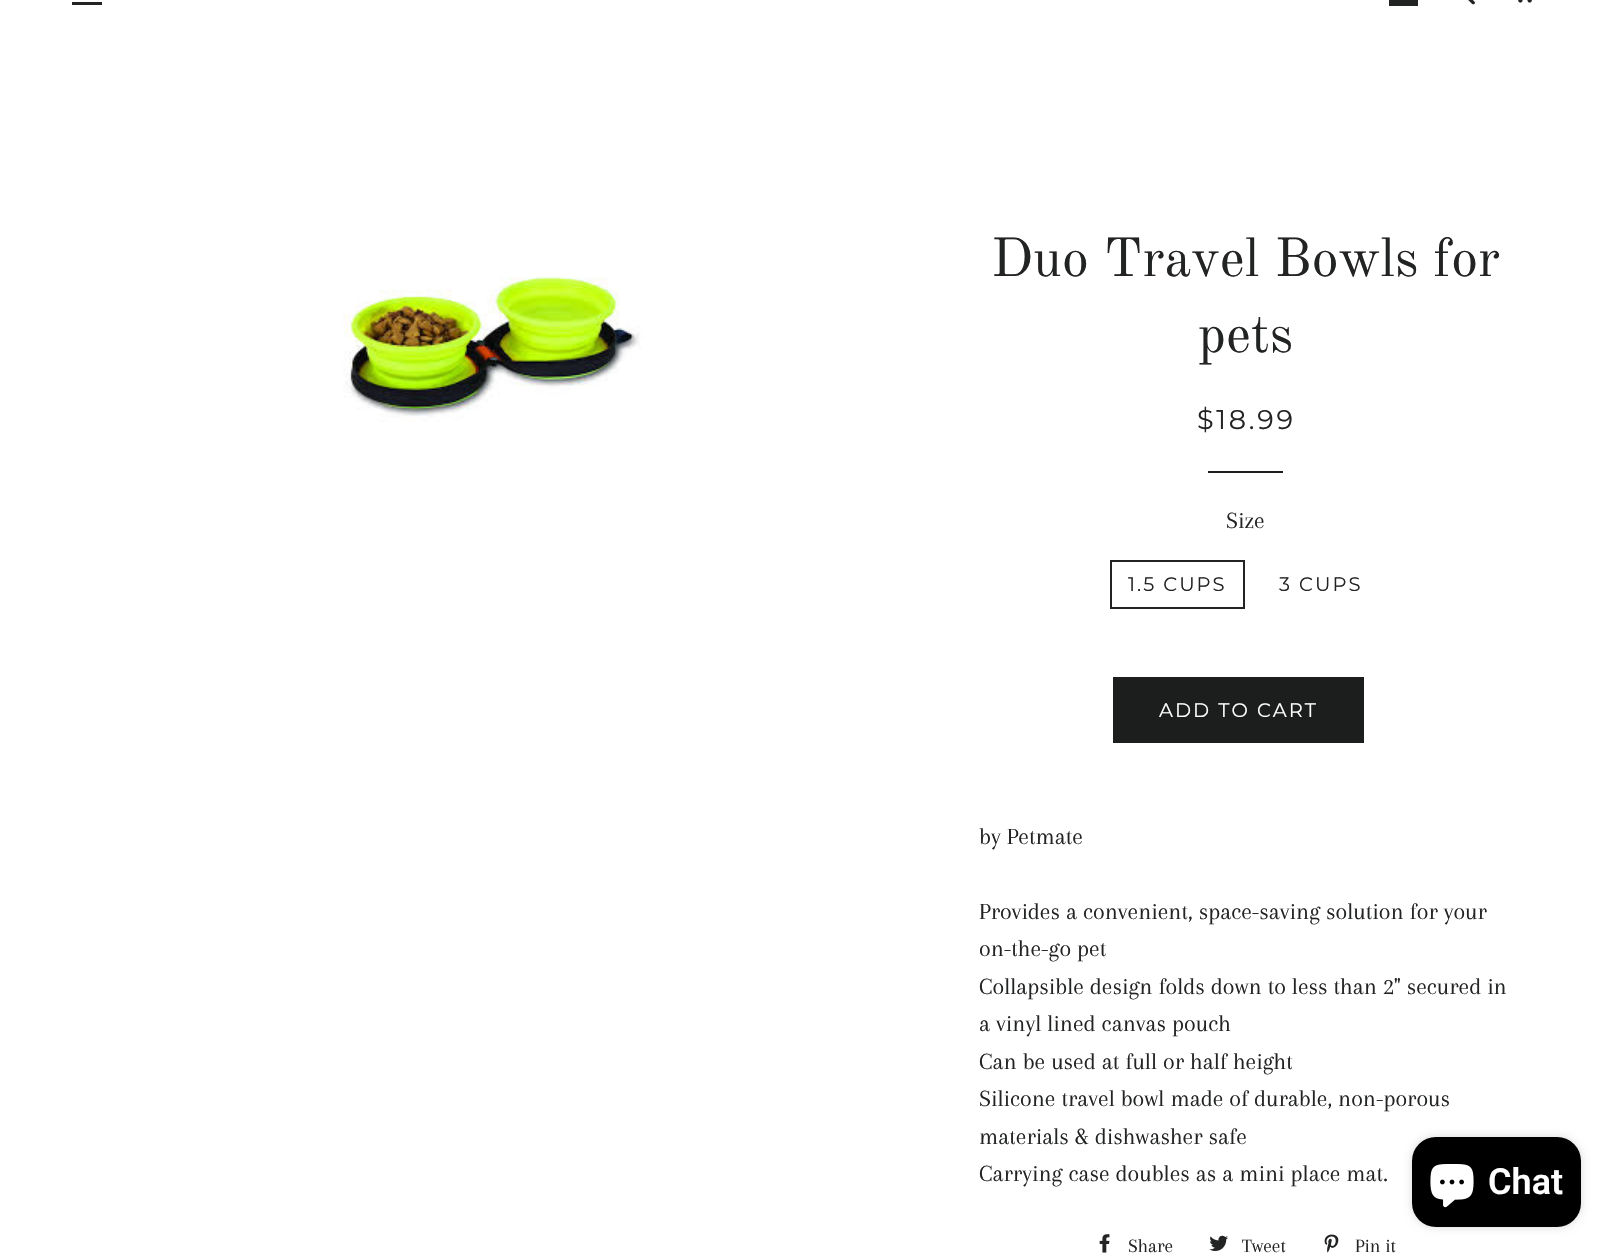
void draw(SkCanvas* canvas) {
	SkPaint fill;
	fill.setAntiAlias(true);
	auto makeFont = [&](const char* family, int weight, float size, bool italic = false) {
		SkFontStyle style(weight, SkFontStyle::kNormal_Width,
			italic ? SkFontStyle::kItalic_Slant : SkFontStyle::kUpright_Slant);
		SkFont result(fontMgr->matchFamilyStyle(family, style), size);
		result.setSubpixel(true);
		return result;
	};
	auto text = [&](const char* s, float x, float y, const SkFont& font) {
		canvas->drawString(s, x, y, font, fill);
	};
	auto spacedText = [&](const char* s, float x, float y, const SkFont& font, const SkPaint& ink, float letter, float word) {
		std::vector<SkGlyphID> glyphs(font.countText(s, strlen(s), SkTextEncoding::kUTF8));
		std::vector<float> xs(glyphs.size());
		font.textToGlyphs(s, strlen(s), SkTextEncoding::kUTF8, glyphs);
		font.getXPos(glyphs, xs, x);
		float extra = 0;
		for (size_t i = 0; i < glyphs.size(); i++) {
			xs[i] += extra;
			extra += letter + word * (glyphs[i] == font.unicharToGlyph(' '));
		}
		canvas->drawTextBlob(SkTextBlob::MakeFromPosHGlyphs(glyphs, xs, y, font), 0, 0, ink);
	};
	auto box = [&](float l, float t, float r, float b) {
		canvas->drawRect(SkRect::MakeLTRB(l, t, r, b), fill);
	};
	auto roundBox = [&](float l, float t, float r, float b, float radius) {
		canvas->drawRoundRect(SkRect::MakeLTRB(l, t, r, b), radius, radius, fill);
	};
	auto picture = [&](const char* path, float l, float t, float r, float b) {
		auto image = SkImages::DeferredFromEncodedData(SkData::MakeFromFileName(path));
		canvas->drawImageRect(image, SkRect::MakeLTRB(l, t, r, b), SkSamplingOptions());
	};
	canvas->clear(0xFFFFFFFF);
	fill.setColor(0xFF222323);
	box(72, 2, 102, 5);
	box(1389, 0, 1418, 6);
	picture("image0.png", 1468, 0, 1475, 5);
	picture("image1.png", 1518, 0, 1532, 3);
	picture("image2.png", 320, 158, 657, 495);
	fill.setColor(0xFF1C1D1D);
	box(1208, 471, 1283, 473);
	fill.setStyle(SkPaint::kStroke_Style);
	fill.setStrokeWidth(2);
	fill.setColor(0xFF222323);
	canvas->drawRect(SkRect::MakeLTRB(1111, 561, 1244, 608), fill);
	fill.setStyle(SkPaint::kFill_Style);
	fill.setColor(0xFF1C1D1D);
	box(1113, 677, 1364, 743);
	picture("image3.png", 1099, 1234, 1110, 1253);
	picture("image4.png", 1209, 1235, 1228, 1251);
	picture("image5.png", 1324, 1234, 1339, 1253);
	fill.setColor(0x26000000);
	fill.setMaskFilter(SkMaskFilter::MakeBlur(kNormal_SkBlurStyle, 4));
	canvas->drawRoundRect(SkRect::MakeLTRB(1412, 1137, 1581, 1227), 24, 24, fill);
	fill.setMaskFilter(nullptr);
	fill.setColor(0xFF000000);
	roundBox(1412, 1137, 1581, 1227, 24);
	picture("image6.png", 1430, 1164, 1474, 1208);
	auto font1 = makeFont("Old Standard TT", 400, 54);
	fill.setColor(0xFF222323);
	text("Duo Travel Bowls for", 991, 276, font1);
	text("pets", 1198, 352, font1);
	auto font2 = makeFont("Montserrat", 100, 27);
	spacedText("$18.99", 1197, 429, font2, fill, 2.75f, 0);
	auto font3 = makeFont("Arapey", 400, 24);
	text("Size", 1226, 528, font3);
	auto font4 = makeFont("Montserrat", 100, 19.5f);
	spacedText("1.5 CUPS", 1128, 591, font4, fill, 2, 0);
	spacedText("3 CUPS", 1279, 591, font4, fill, 2, 0);
	fill.setColor(0xFFFFFFFF);
	spacedText("ADD TO CART", 1159, 717, font4, fill, 2, 0);
	fill.setColor(0xFF222323);
	text("by Petmate", 979, 844, font3);
	text("Provides a convenient, space-saving solution for your", 979, 919, font3);
	text("on-the-go pet", 979, 956, font3);
	text("Collapsible design folds down to less than 2\" secured in", 979, 994, font3);
	text("a vinyl lined canvas pouch", 979, 1031, font3);
	text("Can be used at full or half height", 979, 1069, font3);
	text("Silicone travel bowl made of durable, non-porous", 979, 1106, font3);
	text("materials & dishwasher safe", 979, 1144, font3);
	text("Carrying case doubles as a mini place mat.", 979, 1181, font3);
	auto font5 = makeFont("Arapey", 400, 19.5f);
	text("Share", 1128, 1252, font5);
	text("Tweet", 1242, 1252, font5);
	text("Pin it", 1355, 1252, font5);
	auto font6 = makeFont("Roboto", 600, 36);
	fill.setColor(0xFFFFFFFF);
	text("Chat", 1488, 1194, font6);
}
